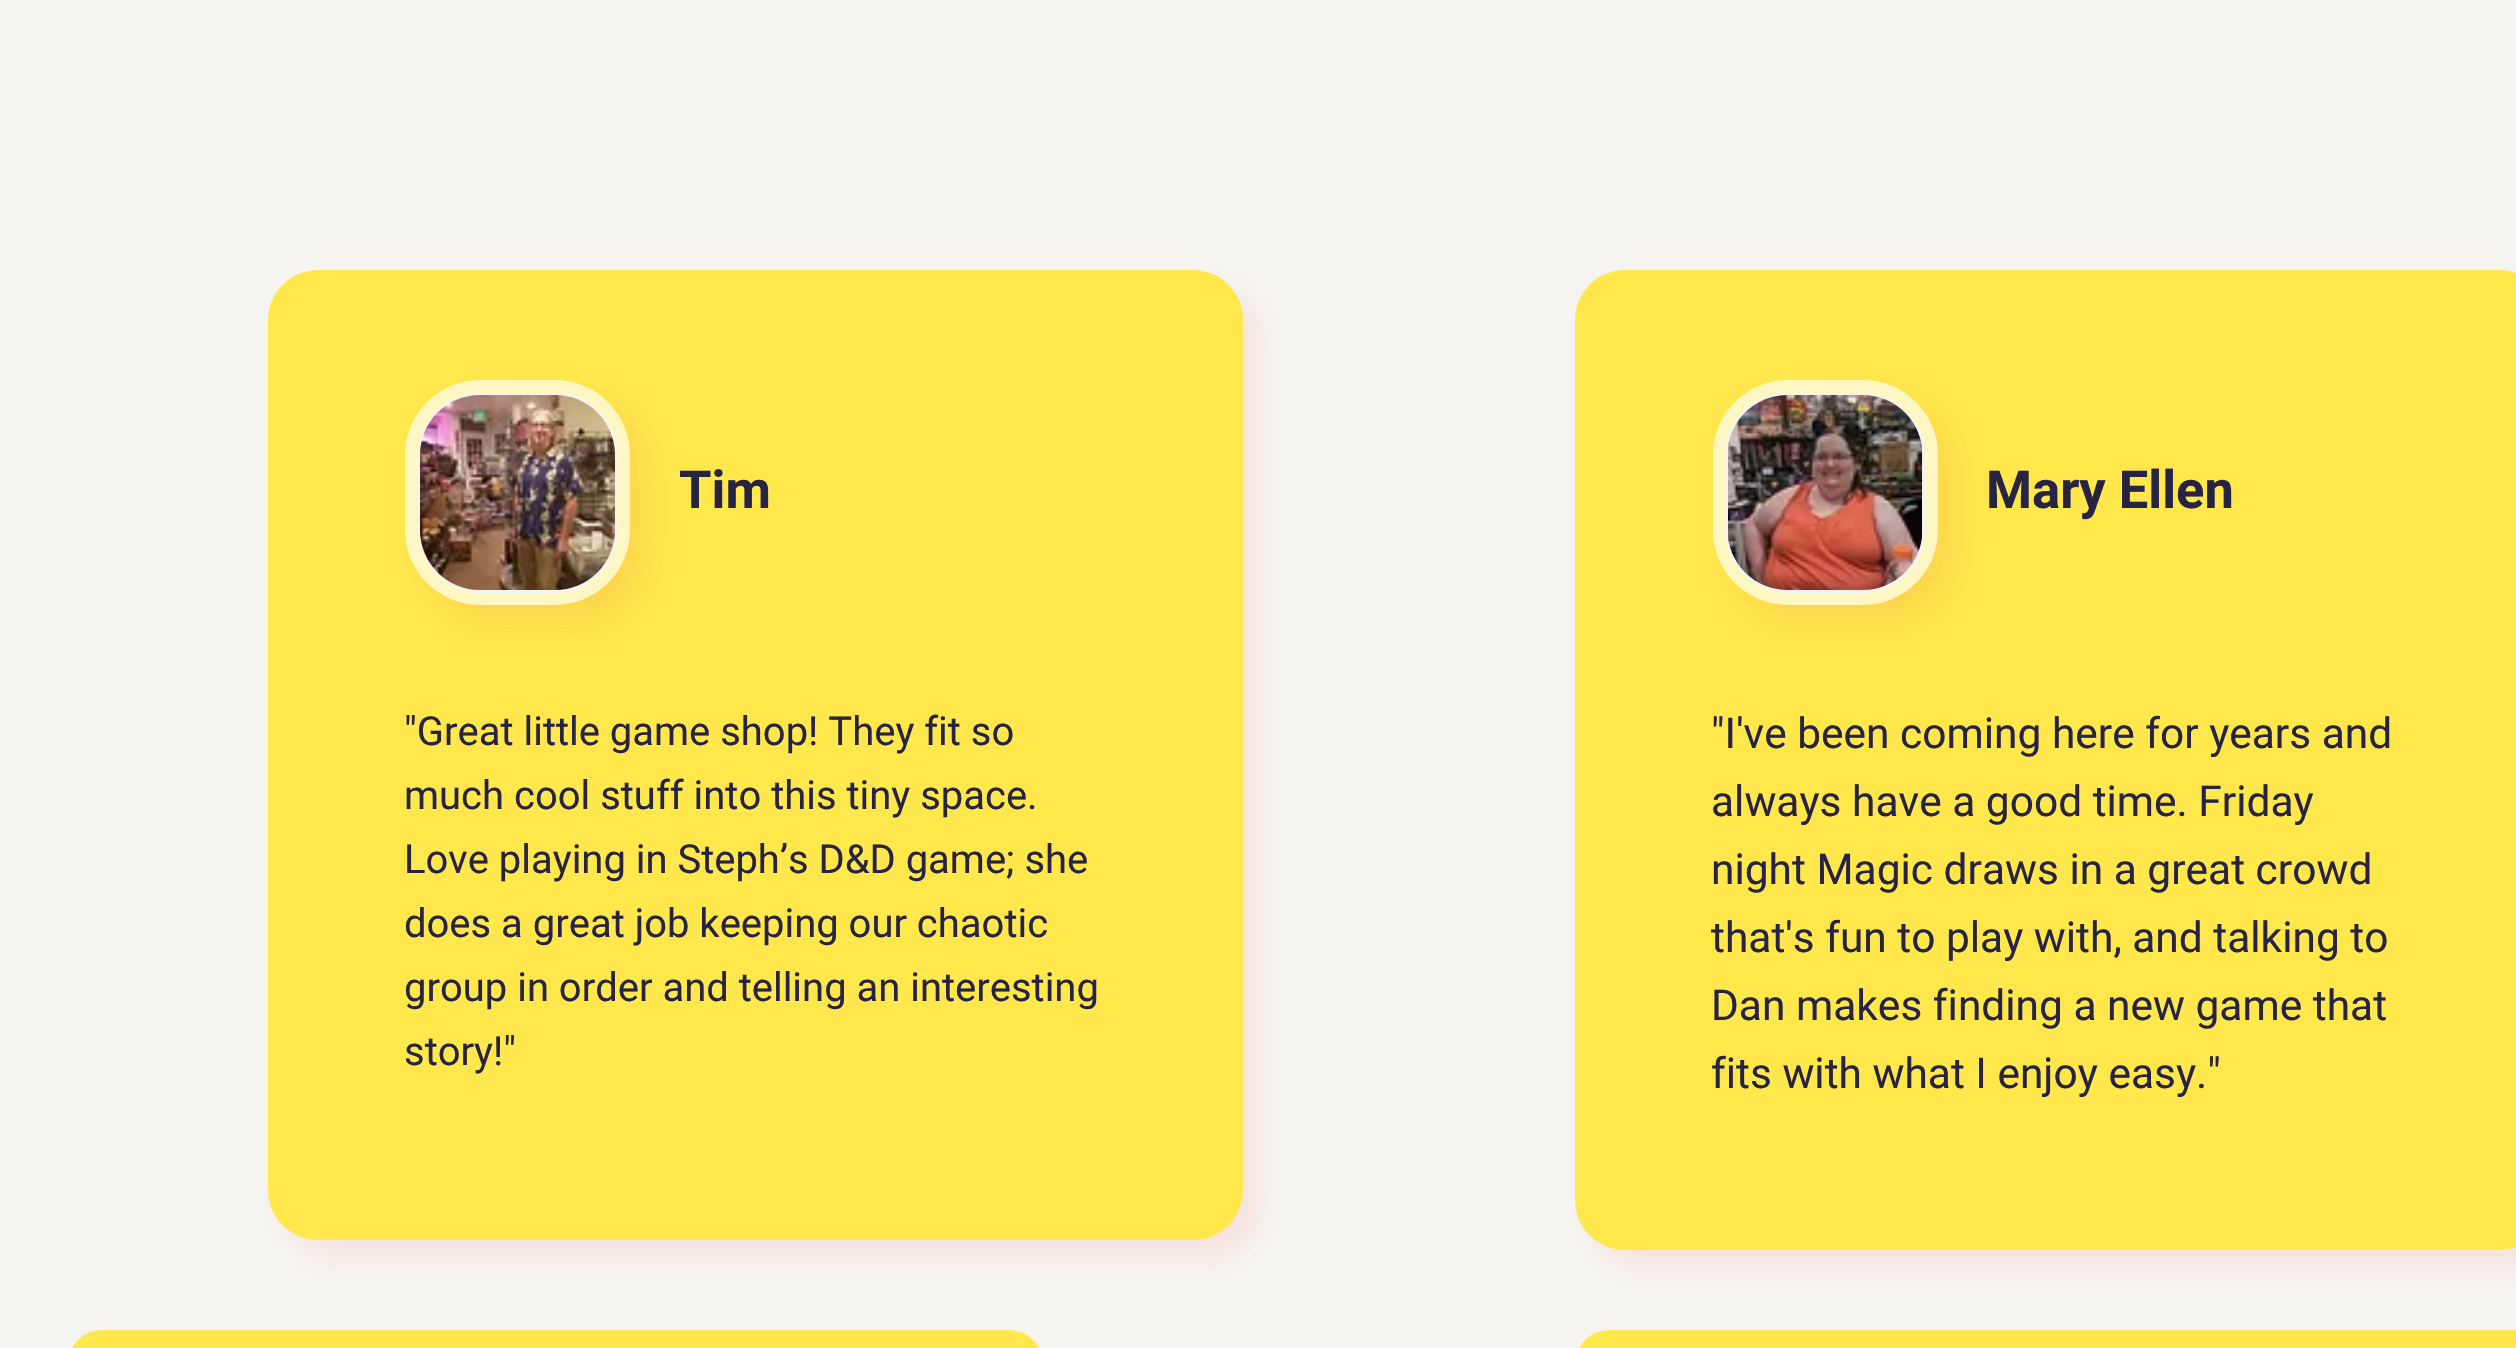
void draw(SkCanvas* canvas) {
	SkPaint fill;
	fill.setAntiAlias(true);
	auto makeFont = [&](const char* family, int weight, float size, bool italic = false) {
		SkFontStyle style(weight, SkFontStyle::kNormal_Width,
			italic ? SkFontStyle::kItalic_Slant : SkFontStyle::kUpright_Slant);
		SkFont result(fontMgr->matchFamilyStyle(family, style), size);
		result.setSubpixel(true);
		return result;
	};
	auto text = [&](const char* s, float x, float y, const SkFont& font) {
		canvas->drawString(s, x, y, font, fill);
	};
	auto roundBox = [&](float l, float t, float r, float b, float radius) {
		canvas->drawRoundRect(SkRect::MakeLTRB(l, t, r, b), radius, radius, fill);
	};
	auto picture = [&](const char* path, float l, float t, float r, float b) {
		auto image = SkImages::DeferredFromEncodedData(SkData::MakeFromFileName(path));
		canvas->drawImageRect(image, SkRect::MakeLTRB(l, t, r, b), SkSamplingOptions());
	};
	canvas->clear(0xFFF6F4F0);
	fill.setColor(0x1AED4B40);
	fill.setMaskFilter(SkMaskFilter::MakeBlur(kNormal_SkBlurStyle, 12.5f));
	canvas->drawRoundRect(SkRect::MakeLTRB(285, 288, 1260, 1258), 50, 50, fill);
	fill.setMaskFilter(nullptr);
	fill.setColor(0xFFFFE74C);
	roundBox(268, 270, 1243, 1240, 50);
	fill.setColor(0x1AED4B40);
	fill.setMaskFilter(SkMaskFilter::MakeBlur(kNormal_SkBlurStyle, 12.5f));
	canvas->drawRoundRect(SkRect::MakeLTRB(423, 398, 648, 623), 75, 75, fill);
	fill.setMaskFilter(nullptr);
	fill.setColor(0xFFFFF7C3);
	roundBox(405, 380, 630, 605, 75);
	fill.setStyle(SkPaint::kStroke_Style);
	fill.setStrokeWidth(3);
	fill.setColor(0xFFF6F4F0);
	canvas->drawRoundRect(SkRect::MakeLTRB(419.5f, 394.5f, 616.5f, 591.5f), 61.5f, 61.5f, fill);
	picture("image0.png", 420, 395, 615, 590);
	fill.setStyle(SkPaint::kFill_Style);
	fill.setColor(0xFFFFE74C);
	roundBox(68, 1330, 1043, 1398, 50);
	roundBox(1575, 1330, 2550, 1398, 50);
	fill.setColor(0x1AED4B40);
	fill.setMaskFilter(SkMaskFilter::MakeBlur(kNormal_SkBlurStyle, 12.5f));
	canvas->drawRoundRect(SkRect::MakeLTRB(1593, 288, 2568, 1268), 50, 50, fill);
	fill.setMaskFilter(nullptr);
	fill.setColor(0xFFFFE74C);
	roundBox(1575, 270, 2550, 1250, 50);
	fill.setColor(0x1AED4B40);
	fill.setMaskFilter(SkMaskFilter::MakeBlur(kNormal_SkBlurStyle, 12.5f));
	canvas->drawRoundRect(SkRect::MakeLTRB(1730, 398, 1955, 623), 75, 75, fill);
	fill.setMaskFilter(nullptr);
	fill.setColor(0xFFFFF7C3);
	roundBox(1713, 380, 1938, 605, 75);
	fill.setStyle(SkPaint::kStroke_Style);
	fill.setColor(0xFFF6F4F0);
	canvas->drawRoundRect(SkRect::MakeLTRB(1726.5f, 394.5f, 1923.5f, 591.5f), 61.5f, 61.5f, fill);
	picture("image1.png", 1728, 395, 1923, 590);
	auto font1 = makeFont("Roboto", 700, 52.5f);
	fill.setStyle(SkPaint::kFill_Style);
	fill.setColor(0xFF272443);
	text("Tim", 679, 508, font1);
	auto font2 = makeFont("Roboto", 400, 40);
	text("\"Great little game shop! They fit so", 404, 745, font2);
	text("much cool stuff into this tiny space.", 404, 809, font2);
	text("Love playing in Steph’s D&D game; she", 404, 873, font2);
	text("does a great job keeping our chaotic", 404, 937, font2);
	text("group in order and telling an interesting", 404, 1001, font2);
	text("story!\"", 404, 1065, font2);
	text("Mary Ellen", 1986, 508, font1);
	auto font3 = makeFont("Roboto", 400, 42.5f);
	text("\"I've been coming here for years and", 1711, 748, font3);
	text("always have a good time. Friday", 1711, 816, font3);
	text("night Magic draws in a great crowd", 1711, 884, font3);
	text("that's fun to play with, and talking to", 1711, 952, font3);
	text("Dan makes finding a new game that", 1711, 1020, font3);
	text("fits with what I enjoy easy.\"", 1711, 1088, font3);
}
